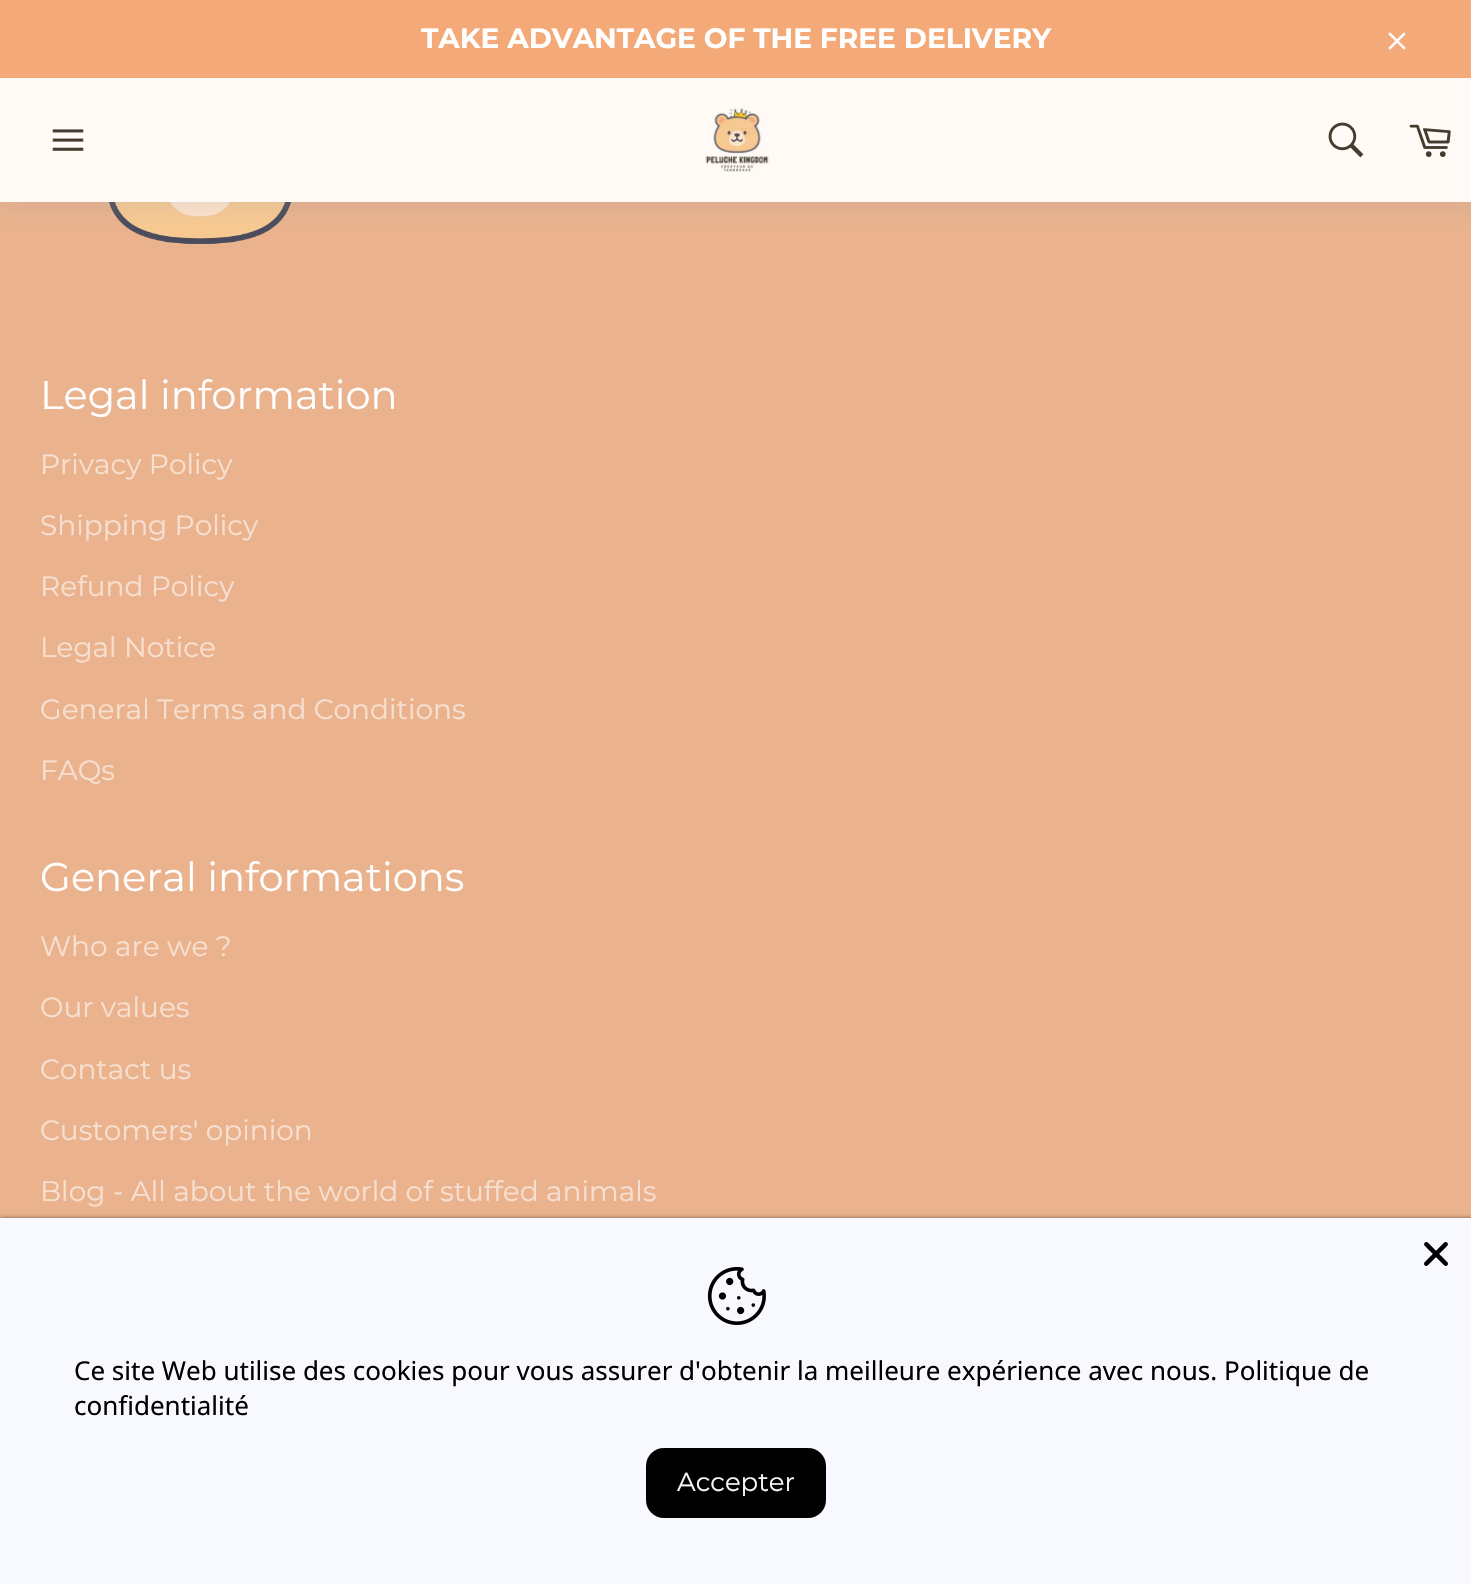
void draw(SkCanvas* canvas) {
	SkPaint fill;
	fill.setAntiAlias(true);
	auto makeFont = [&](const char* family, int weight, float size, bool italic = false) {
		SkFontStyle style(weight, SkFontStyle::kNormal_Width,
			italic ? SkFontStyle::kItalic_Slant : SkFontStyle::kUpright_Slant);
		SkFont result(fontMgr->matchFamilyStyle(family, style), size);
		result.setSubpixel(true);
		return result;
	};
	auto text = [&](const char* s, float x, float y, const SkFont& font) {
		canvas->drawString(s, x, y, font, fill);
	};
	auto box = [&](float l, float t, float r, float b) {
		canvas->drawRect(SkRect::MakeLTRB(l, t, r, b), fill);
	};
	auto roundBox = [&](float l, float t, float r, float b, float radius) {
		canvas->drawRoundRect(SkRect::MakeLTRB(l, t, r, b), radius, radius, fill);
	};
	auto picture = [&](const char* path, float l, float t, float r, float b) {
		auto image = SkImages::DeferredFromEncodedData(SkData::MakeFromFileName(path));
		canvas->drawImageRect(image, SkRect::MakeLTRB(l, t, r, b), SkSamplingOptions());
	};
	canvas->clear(0xFFEAB28D);
	picture("image5.png", 108, 202, 292, 244);
	fill.setColor(0x33999999);
	fill.setMaskFilter(SkMaskFilter::MakeBlur(kNormal_SkBlurStyle, 10));
	canvas->drawRect(SkRect::MakeLTRB(0, 0, 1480, 210), fill);
	fill.setMaskFilter(nullptr);
	fill.setColor(0xFFF4AA78);
	box(0, 0, 1471, 78);
	picture("image0.png", 1388, 32, 1406, 50);
	fill.setColor(0xFFFFFAF5);
	box(0, 78, 1471, 202);
	picture("image1.png", 52, 129, 84, 151);
	picture("image2.png", 705, 106, 769, 172);
	picture("image3.png", 1328, 122, 1364, 158);
	picture("image4.png", 1409, 124, 1451, 157);
	fill.setColor(0x80000000);
	fill.setMaskFilter(SkMaskFilter::MakeBlur(kNormal_SkBlurStyle, 2));
	canvas->drawRect(SkRect::MakeLTRB(0, 1218, 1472, 1584), fill);
	fill.setMaskFilter(nullptr);
	fill.setColor(0xFFF8F8FF);
	box(0, 1218, 1471, 1584);
	picture("image6.png", 1424, 1242, 1448, 1266);
	picture("image7.png", 707, 1267, 766, 1325);
	fill.setColor(0xFF000000);
	roundBox(646, 1448, 826, 1518, 18);
	auto font1 = makeFont("Montserrat", 700, 28);
	fill.setColor(0xFFFFFFFF);
	text("TAKE ADVANTAGE OF THE FREE DELIVERY", 421, 48, font1);
	auto font2 = makeFont("Montserrat", 100, 40);
	text("Legal information", 40, 409, font2);
	auto font3 = makeFont("Montserrat", 100, 28);
	fill.setColor(0xFFF7E0D1);
	text("Privacy Policy", 40, 474, font3);
	text("Shipping Policy", 40, 535, font3);
	text("Refund Policy", 40, 596, font3);
	text("Legal Notice", 40, 657, font3);
	text("General Terms and Conditions", 40, 719, font3);
	text("FAQs", 40, 780, font3);
	fill.setColor(0xFFFFFFFF);
	text("General informations", 40, 891, font2);
	fill.setColor(0xFFF7E0D1);
	text("Who are we ?", 40, 956, font3);
	text("Our values", 40, 1017, font3);
	text("Contact us", 40, 1079, font3);
	text("Customers' opinion", 40, 1140, font3);
	text("Blog - All about the world of stuffed animals", 40, 1201, font3);
	auto font4 = makeFont("Noto Sans", 400, 26);
	fill.setColor(0xFF000000);
	text("Ce site Web utilise des cookies pour vous assurer d'obtenir la meilleure expérience avec nous. Politique de", 74, 1380, font4);
	text("confidentialité", 74, 1415, font4);
	auto font5 = makeFont("Montserrat", 100, 26);
	fill.setColor(0xFFF8F8F8);
	text("Accepter", 677, 1491, font5);
}
